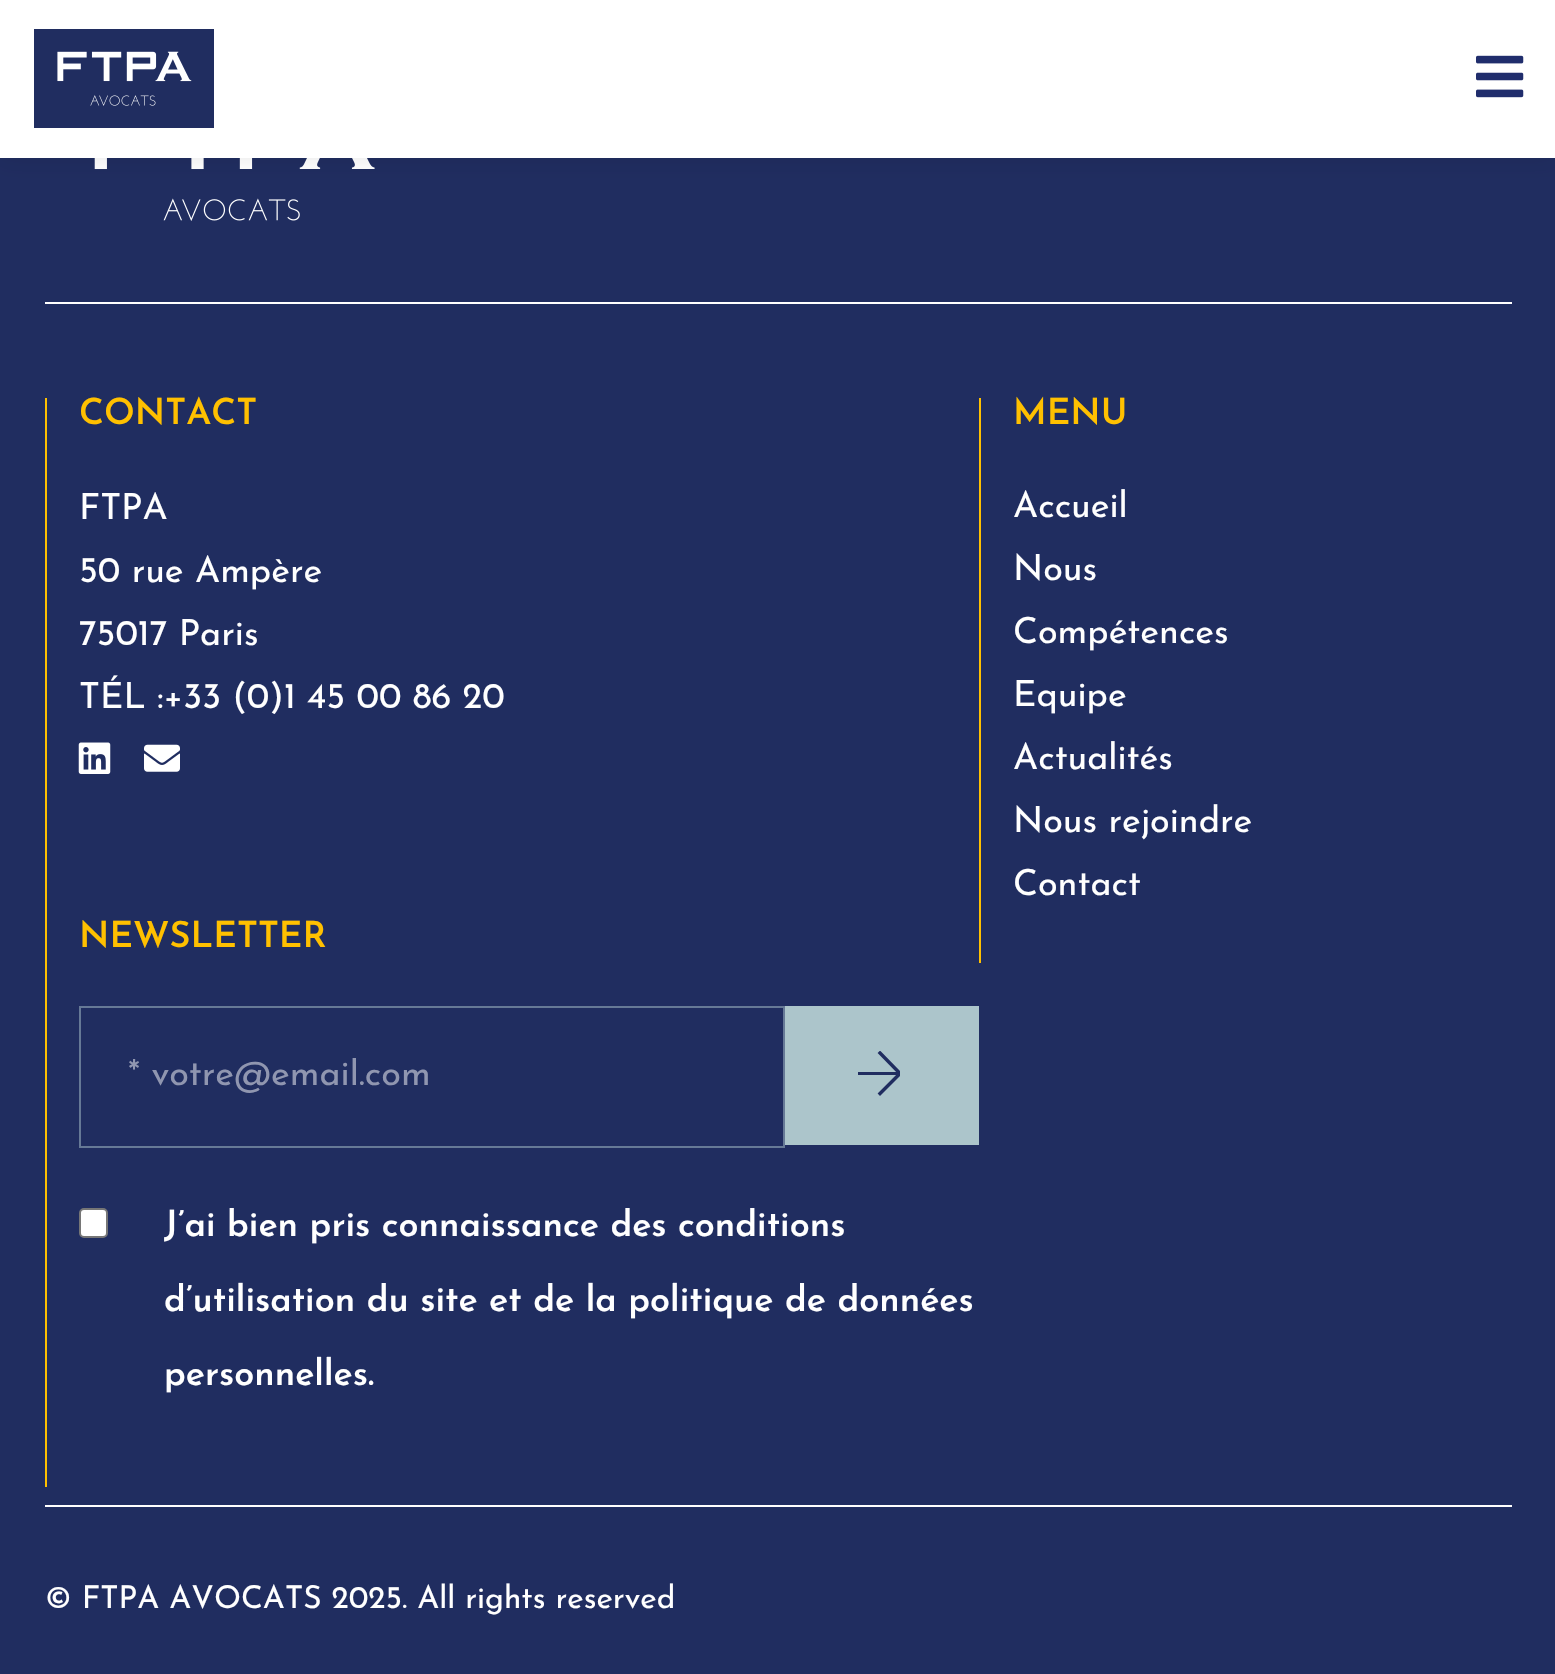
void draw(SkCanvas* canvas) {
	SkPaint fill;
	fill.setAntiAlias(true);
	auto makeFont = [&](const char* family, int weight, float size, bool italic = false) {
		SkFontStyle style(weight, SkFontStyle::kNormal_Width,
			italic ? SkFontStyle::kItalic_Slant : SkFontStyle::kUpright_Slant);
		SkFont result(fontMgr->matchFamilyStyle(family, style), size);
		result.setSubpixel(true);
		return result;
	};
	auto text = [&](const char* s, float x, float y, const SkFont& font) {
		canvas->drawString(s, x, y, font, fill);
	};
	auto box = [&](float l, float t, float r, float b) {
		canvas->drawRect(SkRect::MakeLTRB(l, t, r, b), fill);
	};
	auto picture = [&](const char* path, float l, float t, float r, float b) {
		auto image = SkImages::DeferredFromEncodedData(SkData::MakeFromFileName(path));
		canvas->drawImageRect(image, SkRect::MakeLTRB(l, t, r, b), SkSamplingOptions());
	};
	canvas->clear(0xFF202D60);
	picture("image2.png", 94, 158, 375, 221);
	fill.setColor(0x1A000000);
	fill.setMaskFilter(SkMaskFilter::MakeBlur(kNormal_SkBlurStyle, 11));
	canvas->drawRect(SkRect::MakeLTRB(0, 0, 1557, 158), fill);
	fill.setMaskFilter(nullptr);
	fill.setColor(0xFFFFFFFF);
	box(0, 0, 1555, 158);
	picture("image0.png", 34, 29, 214, 128);
	picture("image1.png", 1476, 55, 1524, 98);
	box(45, 302, 1512, 304);
	fill.setColor(0xFFFFC000);
	box(45, 398, 47, 1487);
	picture("image3.png", 78, 742, 111, 774);
	picture("image4.png", 144, 744, 180, 772);
	box(979, 398, 981, 963);
	fill.setColor(0xFFACC5CB);
	box(785, 1006, 979, 1145);
	fill.setStyle(SkPaint::kStroke_Style);
	fill.setStrokeWidth(2);
	fill.setColor(0xFF667996);
	canvas->drawRect(SkRect::MakeLTRB(80, 1007, 784, 1147), fill);
	fill.setStyle(SkPaint::kFill_Style);
	fill.setColor(0xFF202D60);
	box(858, 1072, 900, 1075);
	canvas->save();
	canvas->clipRect(SkRect::MakeLTRB(857, 1051, 900, 1096));
	fill.setStyle(SkPaint::kStroke_Style);
	fill.setStrokeWidth(3.4f);
	fill.setStrokeCap(SkPaint::kSquare_Cap);
	fill.setStrokeJoin(SkPaint::kRound_Join);
	canvas->drawPath(SkPathBuilder().moveTo(880, 1053).lineTo(900, 1073.5f).lineTo(880, 1093.5f).detach(), fill);
	canvas->restore();
	fill.setStyle(SkPaint::kFill_Style);
	fill.setColor(0xFFFFFFFF);
	canvas->drawRoundRect(SkRect::MakeLTRB(80, 1209, 107, 1237), 4, 4, fill);
	fill.setStyle(SkPaint::kStroke_Style);
	fill.setStrokeWidth(2);
	fill.setStrokeCap(SkPaint::kButt_Cap);
	fill.setStrokeJoin(SkPaint::kMiter_Join);
	fill.setColor(0xFF767676);
	canvas->drawRoundRect(SkRect::MakeLTRB(80, 1209, 107, 1237), 4, 4, fill);
	fill.setStyle(SkPaint::kFill_Style);
	fill.setColor(0xFFFFFFFF);
	box(45, 1505, 1512, 1507);
	auto font1 = makeFont("Josefin Sans", 100, 36);
	fill.setColor(0xFFFFC000);
	text("CONTACT", 79, 424, font1);
	auto font2 = makeFont("Josefin Sans", 400, 36);
	fill.setColor(0xFFFFFFFF);
	text("FTPA", 79, 519, font2);
	text("50 rue Ampère", 79, 582, font2);
	text("75017 Paris", 79, 645, font2);
	text("TÉL :+33 (0)1 45 00 86 20", 79, 708, font2);
	fill.setColor(0xFFFFC000);
	text("MENU", 1013, 424, font1);
	fill.setColor(0xFFFFFFFF);
	text("Accueil", 1013, 517, font2);
	text("Nous", 1013, 580, font2);
	text("Compétences", 1013, 643, font2);
	text("Equipe", 1013, 706, font2);
	text("Actualités", 1013, 769, font2);
	text("Nous rejoindre", 1013, 832, font2);
	text("Contact", 1013, 895, font2);
	fill.setColor(0xFFFFC000);
	text("NEWSLETTER", 79, 947, font1);
	canvas->save();
	canvas->clipRect(SkRect::MakeLTRB(128, 1058, 736, 1094));
	fill.setColor(0xFF9096B0);
	text("* votre@email.com", 128, 1085, font2);
	canvas->restore();
	fill.setColor(0xFFFFFFFF);
	text("J’ai bien pris connaissance des conditions", 164, 1236, font1);
	text("d’utilisation du site et de la politique de données", 164, 1311, font1);
	text("personnelles.", 164, 1385, font1);
	auto font3 = makeFont("Josefin Sans", 400, 31.5f);
	text("© FTPA AVOCATS 2025. All rights reserved", 45, 1608, font3);
}
